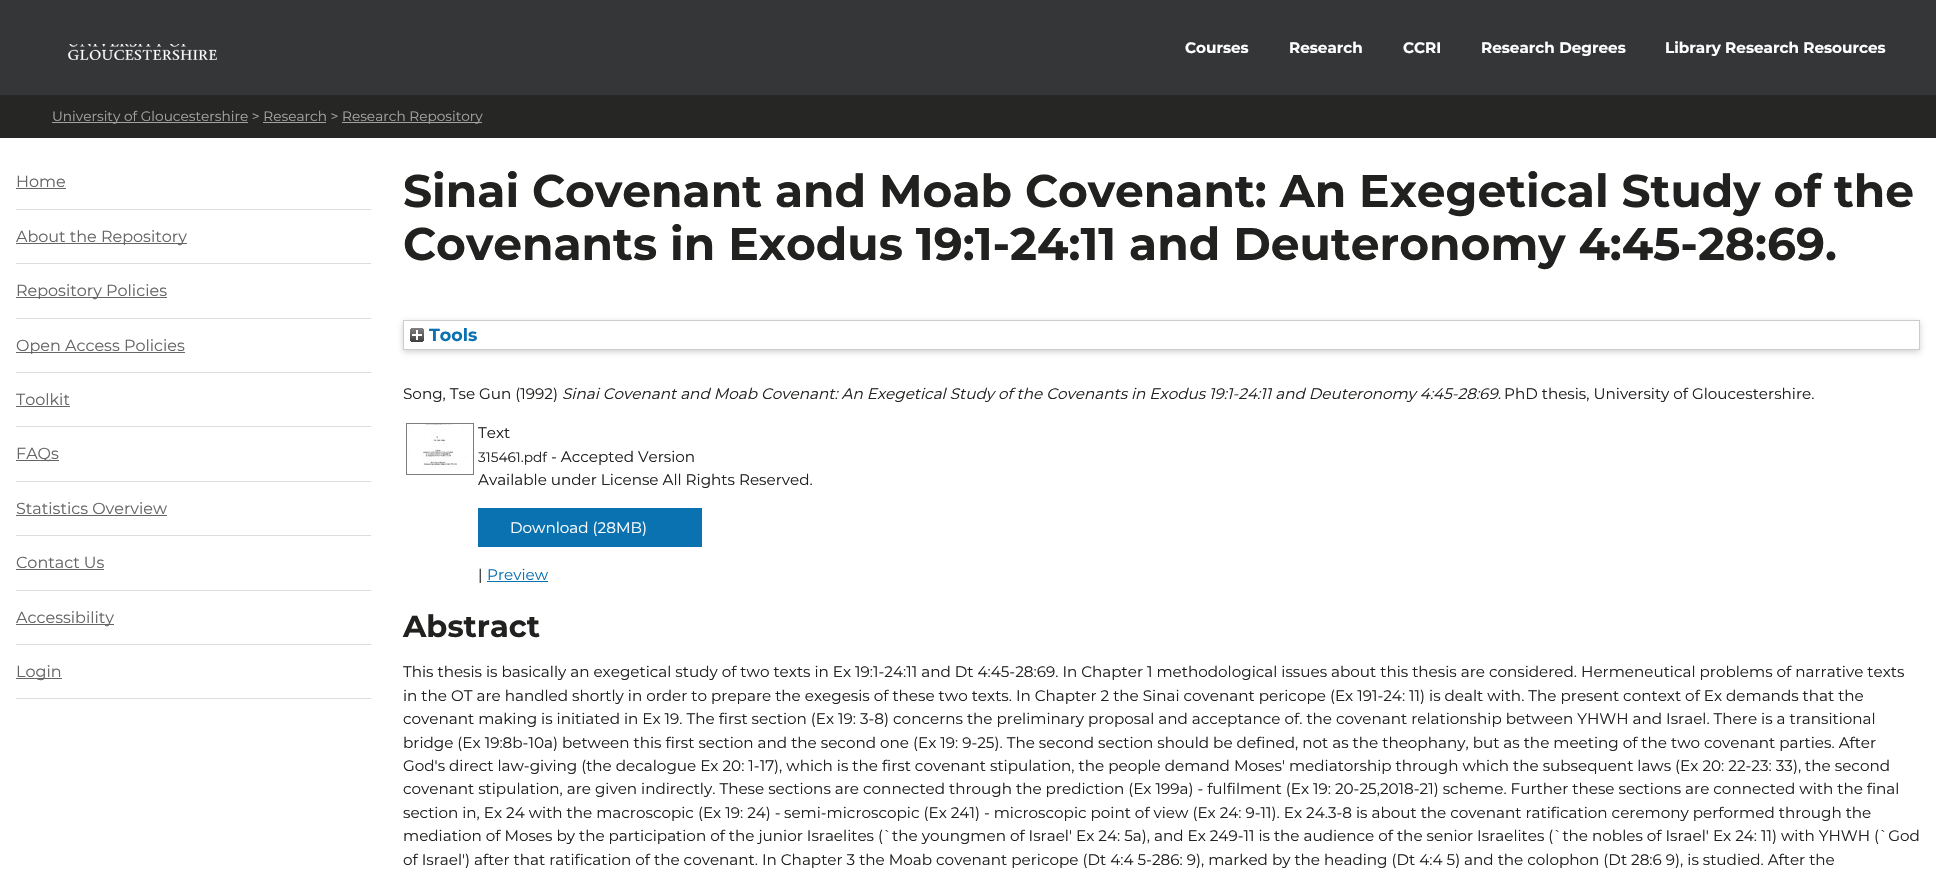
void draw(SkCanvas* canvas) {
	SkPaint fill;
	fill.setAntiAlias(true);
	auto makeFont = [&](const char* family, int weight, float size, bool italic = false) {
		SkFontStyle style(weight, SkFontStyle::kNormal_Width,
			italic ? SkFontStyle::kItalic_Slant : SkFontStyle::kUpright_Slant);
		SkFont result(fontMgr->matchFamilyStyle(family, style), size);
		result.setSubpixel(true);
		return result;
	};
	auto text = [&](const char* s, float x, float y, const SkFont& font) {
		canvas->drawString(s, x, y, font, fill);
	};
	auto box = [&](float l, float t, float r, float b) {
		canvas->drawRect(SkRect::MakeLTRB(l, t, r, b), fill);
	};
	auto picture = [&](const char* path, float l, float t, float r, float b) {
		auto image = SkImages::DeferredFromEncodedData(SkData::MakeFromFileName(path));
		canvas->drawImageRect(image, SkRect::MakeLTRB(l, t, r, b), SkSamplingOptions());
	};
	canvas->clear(0xFFFFFFFF);
	fill.setColor(0xFF353637);
	box(0, 0, 1936, 95);
	picture("image0.png", 67, 44, 217, 60);
	fill.setColor(0xFF262725);
	box(0, 95, 1936, 138);
	fill.setColor(0xFFA5A2A2);
	box(52, 122, 248, 123);
	box(263, 122, 326, 123);
	box(342, 122, 482, 123);
	fill.setColor(0xFFDDDDDD);
	box(16, 209, 371, 210);
	fill.setColor(0xFF666666);
	box(16, 188, 66, 189);
	fill.setColor(0xFFDDDDDD);
	box(16, 263, 371, 264);
	fill.setColor(0xFF666666);
	box(16, 243, 187, 244);
	fill.setColor(0xFFDDDDDD);
	box(16, 318, 371, 319);
	fill.setColor(0xFF666666);
	box(16, 297, 167, 298);
	fill.setColor(0xFFDDDDDD);
	box(16, 372, 371, 373);
	fill.setColor(0xFF666666);
	box(16, 352, 185, 353);
	fill.setColor(0xFFDDDDDD);
	box(16, 426, 371, 427);
	fill.setColor(0xFF666666);
	box(16, 406, 70, 407);
	fill.setColor(0xFFDDDDDD);
	box(16, 481, 371, 482);
	fill.setColor(0xFF666666);
	box(16, 460, 59, 461);
	fill.setColor(0xFFDDDDDD);
	box(16, 535, 371, 536);
	fill.setColor(0xFF666666);
	box(16, 515, 167, 516);
	fill.setColor(0xFFDDDDDD);
	box(16, 590, 371, 591);
	fill.setColor(0xFF666666);
	box(16, 569, 104, 570);
	fill.setColor(0xFFDDDDDD);
	box(16, 644, 371, 645);
	fill.setColor(0xFF666666);
	box(16, 624, 114, 625);
	fill.setColor(0xFFDDDDDD);
	box(16, 698, 371, 699);
	fill.setColor(0xFF666666);
	box(16, 678, 62, 679);
	canvas->save();
	canvas->clipPath(SkPathBuilder(SkPathFillType::kEvenOdd).moveTo(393, 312).lineTo(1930, 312).lineTo(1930, 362).lineTo(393, 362).close().moveTo(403, 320).lineTo(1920, 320).lineTo(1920, 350).lineTo(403, 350).close().detach(), true);
	fill.setColor(0x4D646464);
	fill.setMaskFilter(SkMaskFilter::MakeBlur(kNormal_SkBlurStyle, 3));
	canvas->drawRect(SkRect::MakeLTRB(403, 322, 1920, 352), fill);
	fill.setMaskFilter(nullptr);
	canvas->restore();
	fill.setStyle(SkPaint::kStroke_Style);
	fill.setStrokeWidth(1);
	fill.setColor(0xFFCCCCCC);
	canvas->drawRect(SkRect::MakeLTRB(403.5f, 320.5f, 1919.5f, 349.5f), fill);
	picture("image1.png", 410, 328, 424, 342);
	picture("image2.png", 406, 423, 474, 475);
	fill.setStyle(SkPaint::kFill_Style);
	fill.setColor(0xFF0B72B1);
	box(478, 508, 702, 547);
	box(487, 581, 548, 582);
	auto font1 = makeFont("Montserrat", 700, 15.2f);
	fill.setColor(0xFFFFFFFF);
	text("Courses", 1185, 53, font1);
	text("Research", 1289, 53, font1);
	text("CCRI", 1403, 53, font1);
	text("Research Degrees", 1481, 53, font1);
	text("Library Research Resources", 1665, 53, font1);
	auto font2 = makeFont("Montserrat", 400, 13.7f);
	fill.setColor(0xFFA5A2A2);
	text("University of Gloucestershire > Research >", 52, 121, font2);
	text("Research Repository", 342, 121, font2);
	auto font3 = makeFont("Montserrat", 400, 16);
	fill.setColor(0xFF666666);
	text("Home", 16, 187, font3);
	text("About the Repository", 16, 242, font3);
	text("Repository Policies", 16, 296, font3);
	text("Open Access Policies", 16, 351, font3);
	text("Toolkit", 16, 405, font3);
	text("FAQs", 16, 459, font3);
	text("Statistics Overview", 16, 514, font3);
	text("Contact Us", 16, 568, font3);
	text("Accessibility", 16, 623, font3);
	text("Login", 16, 677, font3);
	auto font4 = makeFont("Montserrat", 700, 45.6f);
	fill.setColor(0xFF21221F);
	text("Sinai Covenant and Moab Covenant: An Exegetical Study of the", 403, 207, font4);
	text("Covenants in Exodus 19:1-24:11 and Deuteronomy 4:45-28:69.", 403, 260, font4);
	auto font5 = makeFont("Montserrat", 700, 17.5f);
	fill.setColor(0xFF0B72B1);
	text("Tools", 429, 341, font5);
	auto font6 = makeFont("Montserrat", 400, 15.2f);
	fill.setColor(0xFF21221F);
	text("Song, Tse Gun (1992)", 403, 399, font6);
	auto font7 = makeFont("Montserrat", 400, 15.2f, true);
	text("Sinai Covenant and Moab Covenant: An Exegetical Study of the Covenants in Exodus 19:1-24:11 and Deuteronomy 4:45-28:69.", 562, 399, font7);
	text("PhD thesis, University of Gloucestershire.", 1504, 399, font6);
	text("Text", 478, 438, font6);
	text("315461.pdf", 478, 462, font2);
	text("- Accepted Version", 551, 462, font6);
	text("Available under License All Rights Reserved.", 478, 485, font6);
	fill.setColor(0xFFFFFFFF);
	text("Download (28MB)", 510, 533, font6);
	fill.setColor(0xFF21221F);
	text("|", 478, 580, font6);
	fill.setColor(0xFF0B72B1);
	text("Preview", 487, 580, font6);
	auto font8 = makeFont("Montserrat", 700, 30.5f);
	fill.setColor(0xFF21221F);
	text("Abstract", 403, 637, font8);
	text("This thesis is basically an exegetical study of two texts in Ex 19:1-24:11 and Dt 4:45-28:69. In Chapter 1 methodological issues about this thesis are considered. Hermeneutical problems of narrative texts", 403, 677, font6);
	text("in the OT are handled shortly in order to prepare the exegesis of these two texts. In Chapter 2 the Sinai covenant pericope (Ex 191-24: 11) is dealt with. The present context of Ex demands that the", 403, 701, font6);
	text("covenant making is initiated in Ex 19. The first section (Ex 19: 3-8) concerns the preliminary proposal and acceptance of. the covenant relationship between YHWH and Israel. There is a transitional", 403, 724, font6);
	text("bridge (Ex 19:8b-10a) between this first section and the second one (Ex 19: 9-25). The second section should be defined, not as the theophany, but as the meeting of the two covenant parties. After", 403, 748, font6);
	text("God's direct law-giving (the decalogue Ex 20: 1-17), which is the first covenant stipulation, the people demand Moses' mediatorship through which the subsequent laws (Ex 20: 22-23: 33), the second", 403, 771, font6);
	text("covenant stipulation, are given indirectly. These sections are connected through the prediction (Ex 199a) - fulfilment (Ex 19: 20-25,2018-21) scheme. Further these sections are connected with the final", 403, 794, font6);
	text("section in, Ex 24 with the macroscopic (Ex 19: 24) -", 403, 818, font6);
	text("semi-microscopic (Ex 241) - microscopic point of view (Ex 24: 9-11). Ex 24.3-8 is about the covenant ratification ceremony performed through the", 784, 818, font6);
	text("mediation of Moses by the participation of the junior Israelites (`the youngmen of Israel' Ex 24: 5a), and Ex 249-11 is the audience of the senior Israelites (`the nobles of Israel' Ex 24: 11) with YHWH (`God", 403, 841, font6);
	text("of Israel') after that ratification of the covenant. In Chapter 3 the Moab covenant pericope (Dt 4:4 5-286: 9), marked by the heading (Dt 4:4 5) and the colophon (Dt 28:6 9), is studied. After the", 403, 865, font6);
}
